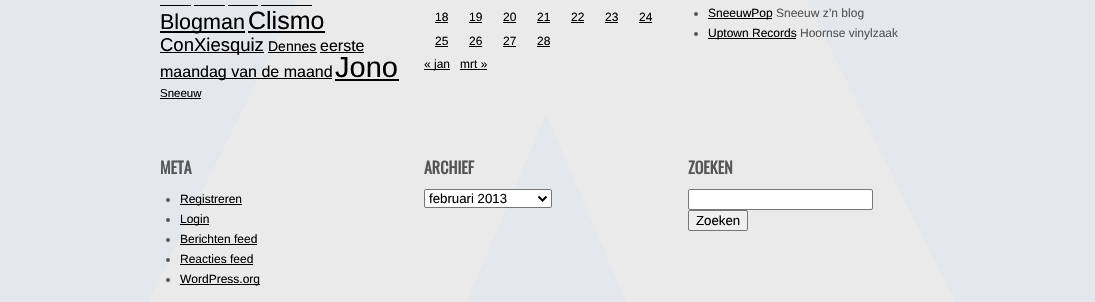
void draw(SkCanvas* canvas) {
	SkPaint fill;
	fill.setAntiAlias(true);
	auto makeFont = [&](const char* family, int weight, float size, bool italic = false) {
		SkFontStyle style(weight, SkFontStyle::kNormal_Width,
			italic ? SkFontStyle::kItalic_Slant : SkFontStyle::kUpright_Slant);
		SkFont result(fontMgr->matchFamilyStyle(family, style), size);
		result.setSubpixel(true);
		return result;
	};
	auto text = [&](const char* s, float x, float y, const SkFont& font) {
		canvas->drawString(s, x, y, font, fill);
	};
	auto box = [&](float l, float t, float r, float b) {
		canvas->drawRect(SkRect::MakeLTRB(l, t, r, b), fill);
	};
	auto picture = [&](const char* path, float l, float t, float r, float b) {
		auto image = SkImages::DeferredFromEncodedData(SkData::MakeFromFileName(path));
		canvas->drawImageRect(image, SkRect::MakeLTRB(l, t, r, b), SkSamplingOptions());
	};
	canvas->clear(0xFFE4E7EB);
	picture("image0.png", 150, 0, 955, 302);
	fill.setColor(0xFF000000);
	box(160, 5, 191, 6);
	box(194, 5, 225, 6);
	box(228, 5, 258, 6);
	box(261, 5, 312, 6);
	box(160, 31, 245, 33);
	box(248, 31, 325, 33);
	box(160, 52, 264, 53);
	box(268, 52, 317, 53);
	box(320, 52, 364, 53);
	box(160, 78, 332, 79);
	box(335, 79, 399, 81);
	box(160, 98, 201, 99);
	box(435, 22, 448, 23);
	box(469, 22, 482, 23);
	box(503, 22, 516, 23);
	box(537, 22, 550, 23);
	box(571, 22, 584, 23);
	box(605, 22, 618, 23);
	box(639, 22, 652, 23);
	box(435, 46, 448, 47);
	box(469, 46, 482, 47);
	box(503, 46, 516, 47);
	box(537, 46, 550, 47);
	box(424, 69, 450, 70);
	box(460, 69, 487, 70);
	fill.setColor(0xFF555555);
	canvas->drawCircle(696, 14, 2, fill);
	fill.setColor(0xFF000000);
	box(708, 18, 772, 19);
	fill.setColor(0xFF555555);
	canvas->drawCircle(696, 34, 2, fill);
	fill.setColor(0xFF000000);
	box(708, 38, 796, 39);
	fill.setColor(0xFF555555);
	canvas->drawCircle(168, 200, 2, fill);
	fill.setColor(0xFF000000);
	box(180, 204, 242, 205);
	fill.setColor(0xFF555555);
	canvas->drawCircle(168, 220, 2, fill);
	fill.setColor(0xFF000000);
	box(180, 224, 209, 225);
	fill.setColor(0xFF555555);
	canvas->drawCircle(168, 240, 2, fill);
	fill.setColor(0xFF000000);
	box(180, 244, 257, 245);
	fill.setColor(0xFF555555);
	canvas->drawCircle(168, 260, 2, fill);
	fill.setColor(0xFF000000);
	box(180, 264, 253, 265);
	fill.setColor(0xFF555555);
	canvas->drawCircle(168, 280, 2, fill);
	fill.setColor(0xFF000000);
	box(180, 284, 260, 285);
	fill.setColor(0xFFFFFFFF);
	canvas->drawRoundRect(SkRect::MakeLTRB(424.5f, 189.5f, 551.5f, 207.5f), 1.5f, 1.5f, fill);
	fill.setStyle(SkPaint::kStroke_Style);
	fill.setStrokeWidth(1);
	fill.setColor(0xFF767676);
	canvas->drawRoundRect(SkRect::MakeLTRB(424.5f, 189.5f, 551.5f, 207.5f), 1.5f, 1.5f, fill);
	fill.setStrokeWidth(2);
	fill.setColor(0xFF000000);
	canvas->drawPath(SkPathBuilder().moveTo(538.5f, 196.5f).lineTo(542.5f, 200.5f).lineTo(546.5f, 196.5f).detach(), fill);
	fill.setStyle(SkPaint::kFill_Style);
	fill.setColor(0xFFFFFFFF);
	canvas->drawRoundRect(SkRect::MakeLTRB(688.5f, 189.5f, 872.5f, 209.5f), 1.5f, 1.5f, fill);
	fill.setStyle(SkPaint::kStroke_Style);
	fill.setStrokeWidth(1);
	fill.setColor(0xFF767676);
	canvas->drawRoundRect(SkRect::MakeLTRB(688.5f, 189.5f, 872.5f, 209.5f), 1.5f, 1.5f, fill);
	fill.setStyle(SkPaint::kFill_Style);
	fill.setColor(0xFFEFEFEF);
	canvas->drawRoundRect(SkRect::MakeLTRB(688.5f, 210.5f, 747.5f, 230.5f), 1.5f, 1.5f, fill);
	fill.setStyle(SkPaint::kStroke_Style);
	fill.setColor(0xFF767676);
	canvas->drawRoundRect(SkRect::MakeLTRB(688.5f, 210.5f, 747.5f, 230.5f), 1.5f, 1.5f, fill);
	auto font1 = makeFont("Liberation Sans", 400, 21.5f);
	fill.setStyle(SkPaint::kFill_Style);
	fill.setColor(0xFF000000);
	text("Blogman", 160, 29, font1);
	auto font2 = makeFont("Liberation Sans", 400, 25);
	text("Clismo", 248, 29, font2);
	auto font3 = makeFont("Liberation Sans", 400, 18.5f);
	text("ConXiesquiz", 160, 51, font3);
	auto font4 = makeFont("Liberation Sans", 400, 14);
	text("Dennes", 268, 51, font4);
	auto font5 = makeFont("Liberation Sans", 400, 16);
	text("eerste", 320, 51, font5);
	text("maandag van de maand", 160, 77, font5);
	auto font6 = makeFont("Liberation Sans", 400, 29);
	text("Jono", 335, 77, font6);
	auto font7 = makeFont("Liberation Sans", 400, 11.5f);
	text("Sneeuw", 160, 97, font7);
	auto font8 = makeFont("Liberation Sans", 400, 12);
	text("18", 435, 21, font8);
	text("19", 469, 21, font8);
	text("20", 503, 21, font8);
	text("21", 537, 21, font8);
	text("22", 571, 21, font8);
	text("23", 605, 21, font8);
	text("24", 639, 21, font8);
	text("25", 435, 45, font8);
	text("26", 469, 45, font8);
	text("27", 503, 45, font8);
	text("28", 537, 45, font8);
	text("« jan", 424, 68, font8);
	text("mrt »", 460, 68, font8);
	text("SneeuwPop", 708, 17, font8);
	fill.setColor(0xFF555555);
	text("Sneeuw z’n blog", 776, 17, font8);
	fill.setColor(0xFF000000);
	text("Uptown Records", 708, 37, font8);
	fill.setColor(0xFF555555);
	text("Hoornse vinylzaak", 800, 37, font8);
	auto font9 = makeFont("Oswald", 700, 16);
	text("META", 160, 174, font9);
	fill.setColor(0xFF000000);
	text("Registreren", 180, 203, font8);
	text("Login", 180, 223, font8);
	text("Berichten feed", 180, 243, font8);
	text("Reacties feed", 180, 263, font8);
	text("WordPress.org", 180, 283, font8);
	fill.setColor(0xFF555555);
	text("ARCHIEF", 424, 174, font9);
	auto font10 = makeFont("Liberation Sans", 400, 13.25f);
	fill.setColor(0xFF000000);
	text("februari 2013", 429, 203, font10);
	fill.setColor(0xFF555555);
	text("ZOEKEN", 688, 174, font9);
	fill.setColor(0xFF000000);
	text("Zoeken", 696, 225, font10);
}
